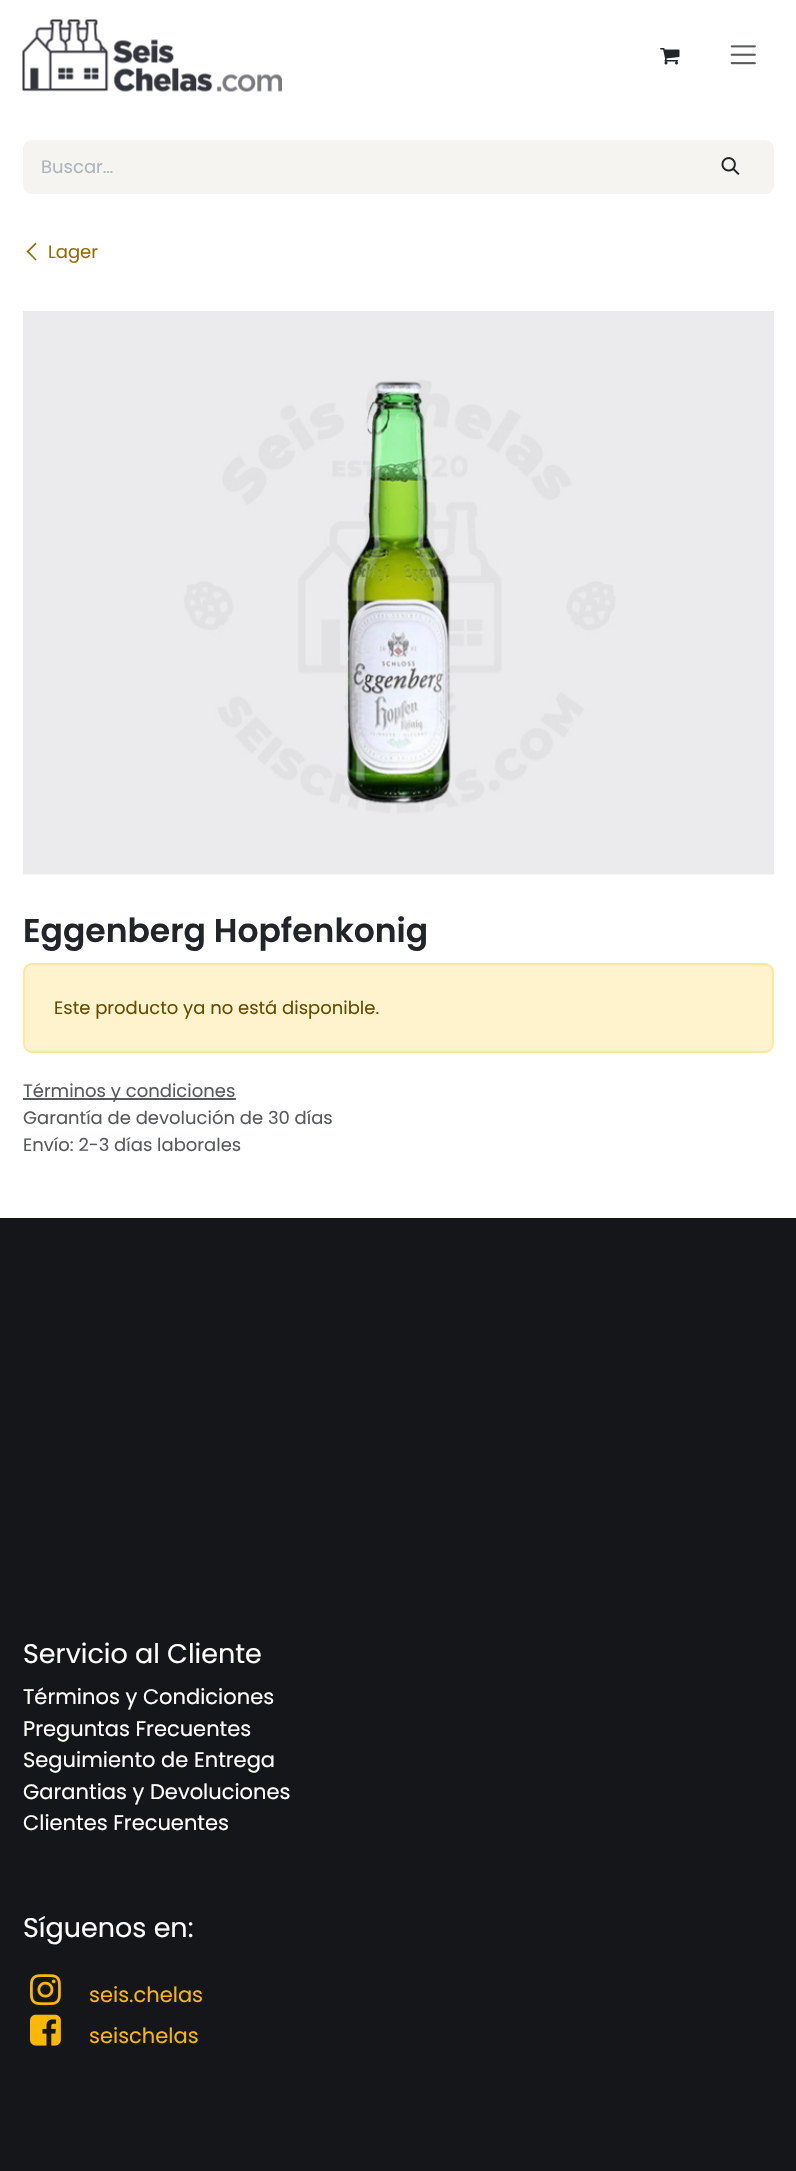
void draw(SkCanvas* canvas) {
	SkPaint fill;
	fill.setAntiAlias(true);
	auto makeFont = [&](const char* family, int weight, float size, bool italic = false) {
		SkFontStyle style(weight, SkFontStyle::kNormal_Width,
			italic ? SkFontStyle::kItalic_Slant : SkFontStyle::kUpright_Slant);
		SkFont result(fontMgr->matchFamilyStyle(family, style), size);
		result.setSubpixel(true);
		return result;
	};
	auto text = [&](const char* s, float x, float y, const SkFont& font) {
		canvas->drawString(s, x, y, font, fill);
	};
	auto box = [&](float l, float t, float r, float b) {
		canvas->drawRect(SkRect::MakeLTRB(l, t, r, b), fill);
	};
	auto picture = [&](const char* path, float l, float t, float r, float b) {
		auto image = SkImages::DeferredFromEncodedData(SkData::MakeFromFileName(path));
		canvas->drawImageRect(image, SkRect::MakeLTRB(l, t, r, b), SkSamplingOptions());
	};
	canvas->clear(0xFFFFFFFF);
	picture("image0.png", 22, 19, 282, 92);
	picture("image1.png", 660, 48, 680, 65);
	picture("image2.png", 730, 45, 756, 65);
	fill.setColor(0xFFF5F4F0);
	canvas->drawPath(SkPathBuilder().moveTo(32, 140).lineTo(690, 140).lineTo(690, 194).lineTo(32, 194).cubicTo(27, 194, 23, 190, 23, 185).lineTo(23, 149).cubicTo(23, 144, 27, 140, 32, 140).close().detach(), fill);
	canvas->drawPath(SkPathBuilder().moveTo(690, 141).lineTo(765, 141).cubicTo(769.5f, 141, 773, 144.5f, 773, 149).lineTo(773, 185).cubicTo(773, 189.5f, 769.5f, 193, 765, 193).lineTo(690, 193).close().detach(), fill);
	fill.setStyle(SkPaint::kStroke_Style);
	fill.setStrokeWidth(2);
	canvas->drawPath(SkPathBuilder().moveTo(690, 141).lineTo(765, 141).cubicTo(769.5f, 141, 773, 144.5f, 773, 149).lineTo(773, 185).cubicTo(773, 189.5f, 769.5f, 193, 765, 193).lineTo(690, 193).close().detach(), fill);
	picture("image3.png", 721, 157, 740, 175);
	fill.setStyle(SkPaint::kFill_Style);
	fill.setColor(0xFF956E02);
	canvas->drawPath(SkPathBuilder().moveTo(26.5f, 251.5f).lineTo(35.5f, 242.5f).lineTo(36.5f, 244).lineTo(29, 251.5f).lineTo(36.5f, 259.5f).lineTo(35.5f, 260.5f).close().detach(), fill);
	picture("image4.png", 23, 311, 774, 875);
	fill.setColor(0xFFFFF3CD);
	canvas->drawRoundRect(SkRect::MakeLTRB(24, 964, 773, 1052), 8, 8, fill);
	fill.setStyle(SkPaint::kStroke_Style);
	fill.setColor(0xFFFFE69C);
	canvas->drawRoundRect(SkRect::MakeLTRB(24, 964, 773, 1052), 8, 8, fill);
	fill.setStyle(SkPaint::kFill_Style);
	fill.setColor(0xFF595C5F);
	box(23, 1098, 236, 1100);
	fill.setColor(0xFF151619);
	box(0, 1218, 796, 2171);
	picture("image5.png", 30, 1974, 61, 2006);
	picture("image6.png", 30, 2014, 61, 2046);
	auto font1 = makeFont("Poppins", 400, 18);
	fill.setColor(0xFFADB5BD);
	text("Buscar…", 41, 173, font1);
	fill.setColor(0xFF956E02);
	text("Lager", 48, 258, font1);
	auto font2 = makeFont("Poppins", 600, 33);
	fill.setColor(0xFF212529);
	text("Eggenberg Hopfenkonig", 23, 942, font2);
	fill.setColor(0xFF664D03);
	text("Este producto ya no está disponible.", 54, 1014, font1);
	fill.setColor(0xFF585B5E);
	text("Términos y condiciones", 23, 1097, font1);
	text("Garantía de devolución de 30 días", 23, 1124, font1);
	text("Envío: 2-3 días laborales", 23, 1151, font1);
	auto font3 = makeFont("Poppins", 400, 27);
	fill.setColor(0xFFFFFFFF);
	text("Servicio al Cliente", 23, 1663, font3);
	auto font4 = makeFont("Poppins", 400, 21);
	text("Términos y Condiciones", 23, 1704, font4);
	text("Preguntas Frecuentes", 23, 1736, font4);
	text("Seguimiento de Entrega", 23, 1767, font4);
	text("Garantias y Devoluciones", 23, 1799, font4);
	text("Clientes Frecuentes", 23, 1830, font4);
	text("Síguenos en:", 23, 1937, font3);
	fill.setColor(0xFFFAB803);
	text("seis.chelas", 89, 2002, font4);
	text("seischelas", 89, 2043, font4);
}
